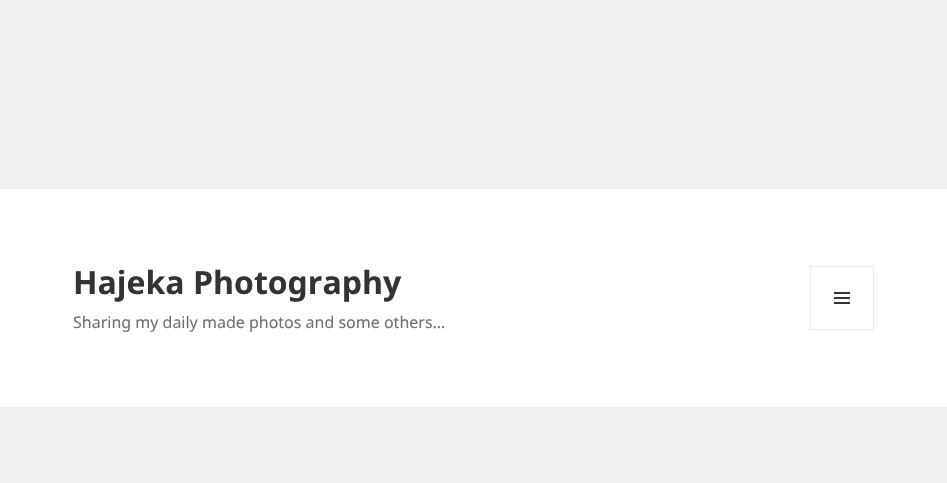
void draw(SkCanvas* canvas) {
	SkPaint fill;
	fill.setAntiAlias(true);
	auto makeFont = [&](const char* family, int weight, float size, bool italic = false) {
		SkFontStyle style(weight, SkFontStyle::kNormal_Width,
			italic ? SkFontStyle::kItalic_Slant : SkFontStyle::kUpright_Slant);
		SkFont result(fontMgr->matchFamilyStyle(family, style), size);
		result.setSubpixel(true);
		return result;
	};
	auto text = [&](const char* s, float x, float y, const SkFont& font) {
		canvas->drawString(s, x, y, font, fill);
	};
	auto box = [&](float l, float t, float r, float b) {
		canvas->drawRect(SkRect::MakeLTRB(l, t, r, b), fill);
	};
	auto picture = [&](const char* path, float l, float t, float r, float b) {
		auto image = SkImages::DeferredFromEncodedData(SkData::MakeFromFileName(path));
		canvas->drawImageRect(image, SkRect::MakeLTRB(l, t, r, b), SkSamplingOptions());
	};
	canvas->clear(0xFFF1F1F1);
	fill.setColor(0xFFFFFFFF);
	box(0, 189, 947, 407);
	fill.setColor(0xFFEBEBEB);
	box(0, 407, 947, 408);
	fill.setStyle(SkPaint::kStroke_Style);
	fill.setStrokeWidth(1);
	canvas->drawRect(SkRect::MakeLTRB(810.5f, 266.5f, 873.5f, 329.5f), fill);
	picture("image0.png", 834, 292, 850, 304);
	auto font1 = makeFont("Noto Sans", 700, 32);
	fill.setStyle(SkPaint::kFill_Style);
	fill.setColor(0xFF333333);
	text("Hajeka Photography", 73, 294, font1);
	auto font2 = makeFont("Noto Sans", 400, 16);
	fill.setColor(0xFF707070);
	text("Sharing my daily made photos and some others…", 73, 328, font2);
}
